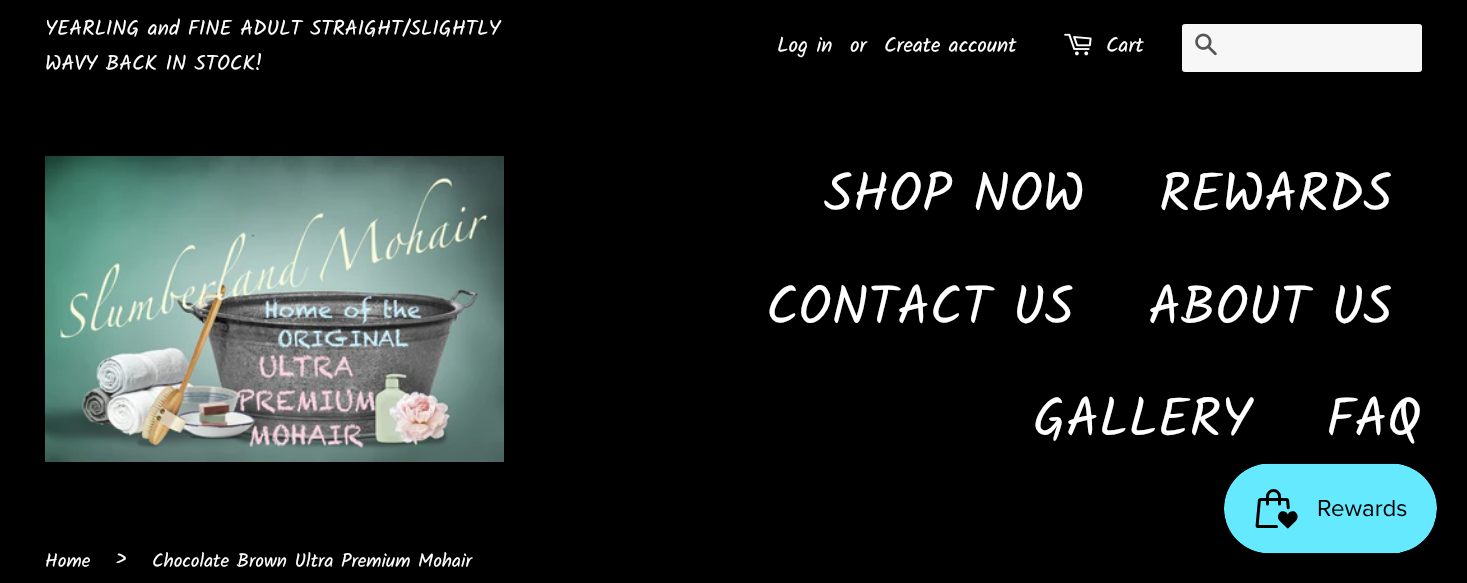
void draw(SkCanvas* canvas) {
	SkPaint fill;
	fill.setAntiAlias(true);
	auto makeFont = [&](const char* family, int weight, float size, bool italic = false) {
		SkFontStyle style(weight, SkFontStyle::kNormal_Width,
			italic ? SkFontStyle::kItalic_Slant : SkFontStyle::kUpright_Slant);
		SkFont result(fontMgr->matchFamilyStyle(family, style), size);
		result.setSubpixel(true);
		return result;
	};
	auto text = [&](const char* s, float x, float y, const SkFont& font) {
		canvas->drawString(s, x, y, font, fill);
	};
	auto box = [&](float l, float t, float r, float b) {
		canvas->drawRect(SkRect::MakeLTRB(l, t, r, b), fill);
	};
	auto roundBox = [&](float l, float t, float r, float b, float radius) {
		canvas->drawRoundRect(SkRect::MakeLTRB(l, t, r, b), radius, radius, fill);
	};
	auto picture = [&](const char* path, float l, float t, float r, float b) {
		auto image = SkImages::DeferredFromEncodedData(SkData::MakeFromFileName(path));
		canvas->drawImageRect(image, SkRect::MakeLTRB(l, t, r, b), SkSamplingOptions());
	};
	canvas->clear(0xFF000000);
	picture("image0.png", 1064, 33, 1092, 56);
	fill.setColor(0xFFFFFFFF);
	roundBox(1182, 24, 1422, 72, 3);
	fill.setColor(0x08000000);
	box(1182, 24, 1422, 72);
	picture("image1.png", 1195, 33, 1217, 56);
	picture("image2.png", 45, 156, 504, 462);
	picture("image3.png", 1224, 463, 1437, 554);
	auto font1 = makeFont("Kalam", 400, 21);
	fill.setColor(0xFFFFFFFF);
	text("YEARLING and FINE ADULT STRAIGHT/SLIGHTLY", 45, 35, font1);
	text("WAVY BACK IN STOCK!", 45, 70, font1);
	text("Log in", 777, 52, font1);
	text("or", 850, 52, font1);
	text("Create account", 884, 52, font1);
	text("Cart", 1106, 52, font1);
	auto font2 = makeFont("Kalam", 400, 54);
	text("SHOP NOW", 824, 211, font2);
	text("REWARDS", 1159, 211, font2);
	text("CONTACT US", 766, 324, font2);
	text("ABOUT US", 1148, 324, font2);
	text("GALLERY", 1033, 436, font2);
	text("FAQ", 1326, 436, font2);
	auto font3 = makeFont("Kalam", 400, 19.1f);
	text("Home", 45, 567, font3);
	auto font4 = makeFont("Kalam", 400, 27);
	text("›", 113, 567, font4);
	text("Chocolate Brown Ultra Premium Mohair", 152, 567, font3);
}
